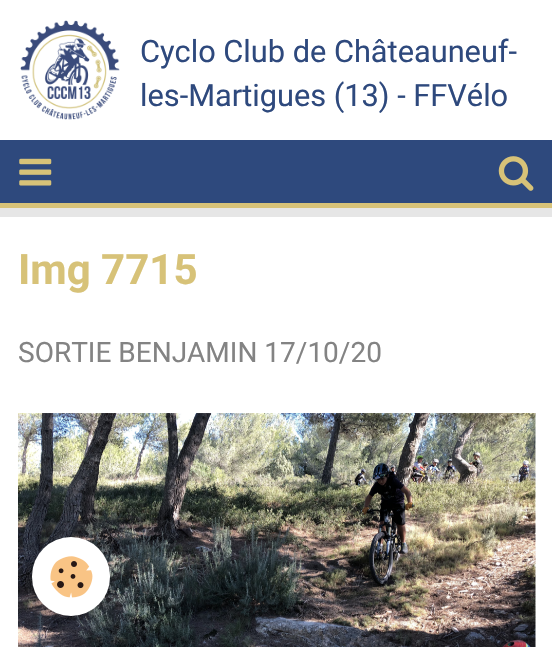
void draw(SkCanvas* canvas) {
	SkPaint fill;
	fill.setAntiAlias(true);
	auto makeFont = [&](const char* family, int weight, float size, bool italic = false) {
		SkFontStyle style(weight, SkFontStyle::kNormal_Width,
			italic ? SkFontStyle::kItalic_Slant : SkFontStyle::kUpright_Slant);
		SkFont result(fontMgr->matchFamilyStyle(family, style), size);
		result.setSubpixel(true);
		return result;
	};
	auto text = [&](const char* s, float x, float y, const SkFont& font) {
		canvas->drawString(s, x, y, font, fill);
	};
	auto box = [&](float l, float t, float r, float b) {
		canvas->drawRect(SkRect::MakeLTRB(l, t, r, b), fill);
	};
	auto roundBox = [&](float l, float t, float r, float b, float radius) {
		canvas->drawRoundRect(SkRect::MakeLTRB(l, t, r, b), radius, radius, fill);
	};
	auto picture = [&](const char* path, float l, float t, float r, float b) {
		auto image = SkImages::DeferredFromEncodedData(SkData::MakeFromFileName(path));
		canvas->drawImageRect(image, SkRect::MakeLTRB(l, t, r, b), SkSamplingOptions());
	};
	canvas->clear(0xFFFFFFFF);
	fill.setColor(0xFFE6E6E6);
	box(0, 208, 552, 217);
	fill.setColor(0xFFD7C278);
	box(0, 203, 552, 208);
	picture("image0.png", 20, 20, 120, 120);
	fill.setColor(0xFF2E497D);
	box(0, 140, 552, 203);
	picture("image1.png", 19, 158, 52, 186);
	picture("image2.png", 498, 156, 534, 191);
	picture("image3.png", 18, 413, 536, 647);
	fill.setColor(0x3D000000);
	fill.setMaskFilter(SkMaskFilter::MakeBlur(kNormal_SkBlurStyle, 9));
	canvas->drawRoundRect(SkRect::MakeLTRB(32, 543, 110, 621), 39, 39, fill);
	fill.setMaskFilter(nullptr);
	fill.setColor(0xFFFFFFFF);
	roundBox(32, 537, 110, 616, 39);
	picture("image4.png", 50, 556, 93, 598);
	auto font1 = makeFont("Roboto", 400, 30.75f);
	fill.setColor(0xFF2E497D);
	text("Cyclo Club de Châteauneuf-", 140, 62, font1);
	text("les-Martigues (13) - FFVélo", 140, 106, font1);
	auto font2 = makeFont("Roboto", 700, 42);
	fill.setColor(0xFFD7C278);
	text("Img 7715", 18, 284, font2);
	auto font3 = makeFont("Roboto", 400, 28);
	fill.setColor(0xFF838383);
	text("SORTIE BENJAMIN 17/10/20", 18, 362, font3);
}
